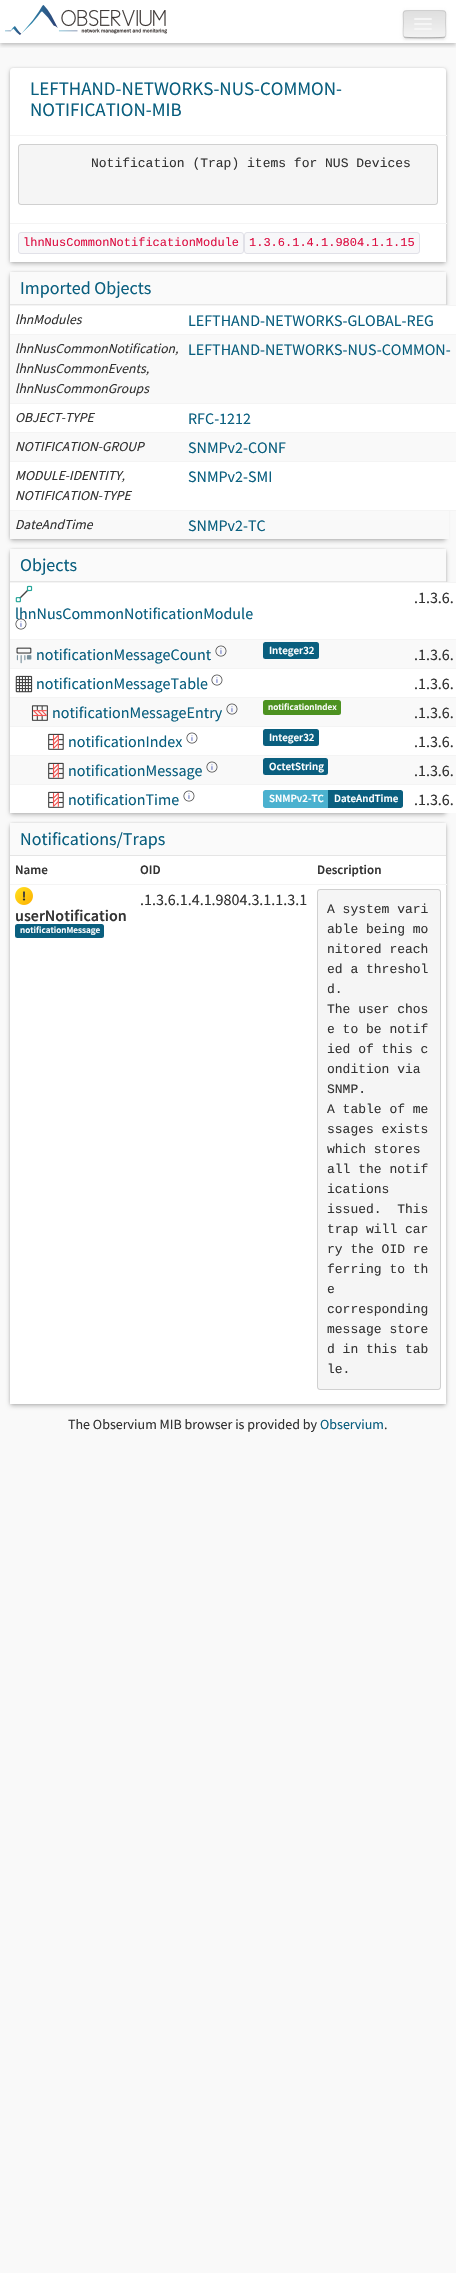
void draw(SkCanvas* canvas) {
	SkPaint fill;
	fill.setAntiAlias(true);
	auto makeFont = [&](const char* family, int weight, float size, bool italic = false) {
		SkFontStyle style(weight, SkFontStyle::kNormal_Width,
			italic ? SkFontStyle::kItalic_Slant : SkFontStyle::kUpright_Slant);
		SkFont result(fontMgr->matchFamilyStyle(family, style), size);
		result.setSubpixel(true);
		return result;
	};
	auto text = [&](const char* s, float x, float y, const SkFont& font) {
		canvas->drawString(s, x, y, font, fill);
	};
	auto box = [&](float l, float t, float r, float b) {
		canvas->drawRect(SkRect::MakeLTRB(l, t, r, b), fill);
	};
	auto roundBox = [&](float l, float t, float r, float b, float radius) {
		canvas->drawRoundRect(SkRect::MakeLTRB(l, t, r, b), radius, radius, fill);
	};
	auto picture = [&](const char* path, float l, float t, float r, float b) {
		auto image = SkImages::DeferredFromEncodedData(SkData::MakeFromFileName(path));
		canvas->drawImageRect(image, SkRect::MakeLTRB(l, t, r, b), SkSamplingOptions());
	};
	canvas->clear(0xFFF9F9F9);
	fill.setColor(0xFFFFFFFF);
	box(0, 0, 456, 43);
	canvas->save();
	canvas->clipRect(SkRect::MakeLTRB(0, 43, 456, 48));
	fill.setColor(0x3D000000);
	fill.setMaskFilter(SkMaskFilter::MakeBlur(kNormal_SkBlurStyle, 2));
	canvas->drawRect(SkRect::MakeLTRB(0, 2, 456, 45), fill);
	fill.setMaskFilter(nullptr);
	canvas->restore();
	picture("image0.png", 5, 5, 167, 35);
	fill.setColor(0x1F999999);
	fill.setMaskFilter(SkMaskFilter::MakeBlur(kNormal_SkBlurStyle, 2.5f));
	canvas->drawRoundRect(SkRect::MakeLTRB(403, 11, 446, 39), 3, 3, fill);
	fill.setMaskFilter(nullptr);
	fill.setColor(0x33999999);
	fill.setMaskFilter(SkMaskFilter::MakeBlur(kNormal_SkBlurStyle, 0.5f));
	canvas->drawRoundRect(SkRect::MakeLTRB(405, 15, 444, 39), 1, 1, fill);
	fill.setMaskFilter(nullptr);
	fill.setColor(0x24999999);
	fill.setMaskFilter(SkMaskFilter::MakeBlur(kNormal_SkBlurStyle, 1));
	canvas->drawRoundRect(SkRect::MakeLTRB(403, 12, 446, 40), 3, 3, fill);
	fill.setMaskFilter(nullptr);
	fill.setColor(0xFFE7E7E7);
	roundBox(403, 10, 446, 38, 3);
	canvas->save();
	canvas->clipPath(SkPathBuilder().moveTo(406, 10).lineTo(443, 10).cubicTo(444.5f, 10, 446, 11.5f, 446, 13).lineTo(446, 35).cubicTo(446, 36.5f, 444.5f, 38, 443, 38).lineTo(406, 38).cubicTo(404.5f, 38, 403, 36.5f, 403, 35).lineTo(403, 13).cubicTo(403, 11.5f, 404.5f, 10, 406, 10).close().detach(), true);
	{
		const SkColor colors[] = {0xFFDFDFDF, 0xFFF2F2F2};
		const float stops[] = {0, 1};
		const SkPoint ends[] = {{425, 11}, {425, 37}};
		fill.setShader(SkGradientShader::MakeLinear(ends, colors, stops, 2, SkTileMode::kClamp));
		fill.setAlpha(255);
	}
	box(403, 11, 446, 37);
	canvas->restore();
	fill.setStyle(SkPaint::kStroke_Style);
	fill.setStrokeWidth(1);
	fill.setShader(nullptr);
	fill.setColor(0x40000000);
	canvas->drawPath(SkPathBuilder().moveTo(445, 37).cubicTo(443.5f, 38, 405.5f, 38, 404, 37).detach(), fill);
	fill.setColor(0x1A000000);
	canvas->drawPath(SkPathBuilder().moveTo(404, 37).cubicTo(402.5f, 35, 403.5f, 26.5f, 403.5f, 24).cubicTo(403.5f, 11, 400.5f, 10.5f, 412, 10.5f).lineTo(437, 10.5f).cubicTo(448.5f, 10.5f, 445.5f, 11, 445.5f, 24).cubicTo(445.5f, 26.5f, 446.5f, 35, 445, 37).detach(), fill);
	fill.setStyle(SkPaint::kFill_Style);
	fill.setColor(0xFFF5F5F5);
	roundBox(414, 18, 432, 20, 1);
	roundBox(414, 23, 432, 25, 1);
	roundBox(414, 28, 432, 30, 1);
	fill.setColor(0x3D000000);
	fill.setMaskFilter(SkMaskFilter::MakeBlur(kNormal_SkBlurStyle, 2));
	canvas->drawRoundRect(SkRect::MakeLTRB(10, 70, 446, 264), 3, 3, fill);
	fill.setMaskFilter(nullptr);
	fill.setColor(0x1F000000);
	fill.setMaskFilter(SkMaskFilter::MakeBlur(kNormal_SkBlurStyle, 1));
	canvas->drawRoundRect(SkRect::MakeLTRB(10, 68, 446, 262), 3, 3, fill);
	fill.setMaskFilter(nullptr);
	fill.setColor(0xFFFFFFFF);
	roundBox(10, 68, 446, 262, 3);
	box(10, 259, 446, 262);
	fill.setColor(0xFFF4F4F4);
	box(10, 135, 447, 136);
	fill.setColor(0xFFF5F5F5);
	roundBox(18, 144, 438, 205, 3);
	fill.setStyle(SkPaint::kStroke_Style);
	fill.setColor(0x26000000);
	canvas->drawRoundRect(SkRect::MakeLTRB(18.5f, 144.5f, 437.5f, 204.5f), 2.5f, 2.5f, fill);
	fill.setStyle(SkPaint::kFill_Style);
	fill.setColor(0xFFF4F4F4);
	box(10, 223, 447, 224);
	fill.setColor(0xFFF7F7F9);
	canvas->drawRoundRect(SkRect::MakeLTRB(18.5f, 232.5f, 243.5f, 253.5f), 2.5f, 2.5f, fill);
	fill.setStyle(SkPaint::kStroke_Style);
	fill.setColor(0xFFE1E1E8);
	canvas->drawRoundRect(SkRect::MakeLTRB(18.5f, 232.5f, 243.5f, 253.5f), 2.5f, 2.5f, fill);
	fill.setStyle(SkPaint::kFill_Style);
	fill.setColor(0xFFF7F7F9);
	canvas->drawRoundRect(SkRect::MakeLTRB(244.5f, 232.5f, 419.5f, 253.5f), 2.5f, 2.5f, fill);
	fill.setStyle(SkPaint::kStroke_Style);
	fill.setColor(0xFFE1E1E8);
	canvas->drawRoundRect(SkRect::MakeLTRB(244.5f, 232.5f, 419.5f, 253.5f), 2.5f, 2.5f, fill);
	fill.setStyle(SkPaint::kFill_Style);
	fill.setColor(0x3D000000);
	fill.setMaskFilter(SkMaskFilter::MakeBlur(kNormal_SkBlurStyle, 2));
	canvas->drawRoundRect(SkRect::MakeLTRB(10, 274, 446, 541), 3, 3, fill);
	fill.setMaskFilter(nullptr);
	fill.setColor(0x1F000000);
	fill.setMaskFilter(SkMaskFilter::MakeBlur(kNormal_SkBlurStyle, 1));
	canvas->drawRoundRect(SkRect::MakeLTRB(10, 272, 446, 539), 3, 3, fill);
	fill.setMaskFilter(nullptr);
	fill.setColor(0xFFFAFAFA);
	box(10, 272, 446, 304);
	fill.setColor(0xFFE5E5E5);
	box(10, 304, 446, 305);
	fill.setColor(0xFFFFFFFF);
	box(10, 306, 456, 510);
	fill.setColor(0xFFF4F4F4);
	box(10, 305, 456, 306);
	fill.setColor(0xFFF9F9F9);
	box(10, 335, 456, 403);
	fill.setColor(0xFFF4F4F4);
	box(10, 334, 456, 335);
	box(10, 403, 456, 404);
	fill.setColor(0xFFF9F9F9);
	box(10, 433, 456, 461);
	fill.setColor(0xFFF4F4F4);
	box(10, 432, 456, 433);
	box(10, 461, 456, 462);
	fill.setColor(0xFFF9F9F9);
	box(10, 511, 449, 539);
	fill.setColor(0xFFF4F4F4);
	box(10, 510, 456, 511);
	fill.setColor(0x3D000000);
	fill.setMaskFilter(SkMaskFilter::MakeBlur(kNormal_SkBlurStyle, 2));
	canvas->drawRoundRect(SkRect::MakeLTRB(10, 551, 446, 815), 3, 3, fill);
	fill.setMaskFilter(nullptr);
	fill.setColor(0x1F000000);
	fill.setMaskFilter(SkMaskFilter::MakeBlur(kNormal_SkBlurStyle, 1));
	canvas->drawRoundRect(SkRect::MakeLTRB(10, 549, 446, 813), 3, 3, fill);
	fill.setMaskFilter(nullptr);
	fill.setColor(0xFFFAFAFA);
	box(10, 549, 446, 581);
	fill.setColor(0xFFE5E5E5);
	box(10, 581, 446, 582);
	fill.setColor(0xFFFFFFFF);
	box(10, 583, 456, 813);
	fill.setColor(0xFFF4F4F4);
	box(10, 582, 456, 583);
	picture("image1.png", 15, 585, 33, 603);
	fill.setColor(0xFFF9F9F9);
	box(10, 640, 456, 668);
	picture("image3.png", 16, 647, 32, 664);
	picture("image4.png", 215, 645, 227, 657);
	fill.setColor(0xFF0A5F7F);
	roundBox(263, 642, 319, 659, 2.5f);
	fill.setColor(0xFFF4F4F4);
	box(10, 639, 456, 640);
	picture("image5.png", 15, 675, 33, 693);
	picture("image6.png", 211, 674, 223, 686);
	box(10, 668, 456, 669);
	fill.setColor(0xFFF9F9F9);
	box(10, 698, 456, 726);
	picture("image7.png", 31, 705, 48, 721);
	picture("image4.png", 226, 703, 238, 715);
	fill.setColor(0xFF4D9221);
	roundBox(263, 700, 341, 715, 2.5f);
	fill.setColor(0xFFF4F4F4);
	box(10, 697, 456, 698);
	picture("image8.png", 48, 733, 64, 750);
	picture("image6.png", 186, 732, 198, 744);
	fill.setColor(0xFF0A5F7F);
	roundBox(263, 729, 319, 746, 2.5f);
	fill.setColor(0xFFF4F4F4);
	box(10, 726, 456, 727);
	fill.setColor(0xFFF9F9F9);
	box(10, 756, 456, 784);
	picture("image9.png", 48, 762, 64, 779);
	picture("image4.png", 206, 761, 218, 773);
	fill.setColor(0xFF0A5F7F);
	roundBox(263, 758, 328, 775, 2.5f);
	fill.setColor(0xFFF4F4F4);
	box(10, 755, 456, 756);
	picture("image8.png", 48, 791, 64, 808);
	picture("image6.png", 183, 790, 195, 802);
	fill.setColor(0xFF4BB1CF);
	canvas->drawPath(SkPathBuilder().moveTo(265.5f, 790).lineTo(328, 790).lineTo(328, 808).lineTo(265.5f, 808).cubicTo(264, 808, 263, 807, 263, 805.5f).lineTo(263, 792.5f).cubicTo(263, 791, 264, 790, 265.5f, 790).close().detach(), fill);
	fill.setColor(0xFF0A5F7F);
	canvas->drawPath(SkPathBuilder().moveTo(328, 790).lineTo(400.5f, 790).cubicTo(402, 790, 403, 791, 403, 792.5f).lineTo(403, 805.5f).cubicTo(403, 807, 402, 808, 400.5f, 808).lineTo(328, 808).close().detach(), fill);
	fill.setColor(0xFFF4F4F4);
	box(10, 784, 456, 785);
	fill.setColor(0x3D000000);
	fill.setMaskFilter(SkMaskFilter::MakeBlur(kNormal_SkBlurStyle, 2));
	canvas->drawRoundRect(SkRect::MakeLTRB(10, 825, 446, 1406), 3, 3, fill);
	fill.setMaskFilter(nullptr);
	fill.setColor(0x1F000000);
	fill.setMaskFilter(SkMaskFilter::MakeBlur(kNormal_SkBlurStyle, 1));
	canvas->drawRoundRect(SkRect::MakeLTRB(10, 823, 446, 1404), 3, 3, fill);
	fill.setMaskFilter(nullptr);
	fill.setColor(0xFFFAFAFA);
	box(10, 823, 446, 855);
	fill.setColor(0xFFE5E5E5);
	box(10, 855, 446, 856);
	fill.setColor(0xFFFFFFFF);
	box(10, 856, 446, 1404);
	picture("image10.png", 15, 887, 33, 905);
	fill.setColor(0xFF0A5F7F);
	roundBox(15, 924, 104, 938, 2.5f);
	fill.setColor(0xFFF4F4F4);
	box(10, 884, 447, 885);
	fill.setColor(0xFFF5F5F5);
	roundBox(317, 889, 441, 1390, 3);
	fill.setStyle(SkPaint::kStroke_Style);
	fill.setColor(0x26000000);
	canvas->drawRoundRect(SkRect::MakeLTRB(317.5f, 889.5f, 440.5f, 1389.5f), 2.5f, 2.5f, fill);
	auto font1 = makeFont("Source Sans Pro", 400, 19);
	fill.setStyle(SkPaint::kFill_Style);
	fill.setColor(0xFF0A5F7F);
	text("LEFTHAND-NETWORKS-NUS-COMMON-", 30, 95, font1);
	text("NOTIFICATION-MIB", 30, 116, font1);
	auto font2 = makeFont("Liberation Mono", 400, 13);
	fill.setColor(0xFF333333);
	text("Notification (Trap) items for NUS Devices", 91, 167, font2);
	auto font3 = makeFont("Liberation Mono", 400, 12);
	fill.setColor(0xFFDD1144);
	text("lhnNusCommonNotificationModule", 23, 246, font3);
	text("1.3.6.1.4.1.9804.1.1.15", 249, 246, font3);
	auto font4 = makeFont("Source Sans Pro", 400, 18);
	fill.setColor(0xFF0A5F7F);
	text("Imported Objects", 20, 294, font4);
	auto font5 = makeFont("Source Sans Pro", 400, 13.6f, true);
	fill.setColor(0xFF333333);
	text("lhnModules", 15, 324, font5);
	auto font6 = makeFont("Source Sans Pro", 400, 16);
	fill.setColor(0xFF0A5F7F);
	text("LEFTHAND-NETWORKS-GLOBAL-REG", 188, 326, font6);
	fill.setColor(0xFF333333);
	text("lhnNusCommonNotification,", 15, 353, font5);
	text("lhnNusCommonEvents,", 15, 373, font5);
	text("lhnNusCommonGroups", 15, 393, font5);
	fill.setColor(0xFF0A5F7F);
	text("LEFTHAND-NETWORKS-NUS-COMMON-", 188, 355, font6);
	fill.setColor(0xFF333333);
	text("OBJECT-TYPE", 15, 422, font5);
	fill.setColor(0xFF0A5F7F);
	text("RFC-1212", 188, 424, font6);
	fill.setColor(0xFF333333);
	text("NOTIFICATION-GROUP", 15, 451, font5);
	fill.setColor(0xFF0A5F7F);
	text("SNMPv2-CONF", 188, 453, font6);
	fill.setColor(0xFF333333);
	text("MODULE-IDENTITY,", 15, 480, font5);
	text("NOTIFICATION-TYPE", 15, 500, font5);
	fill.setColor(0xFF0A5F7F);
	text("SNMPv2-SMI", 188, 482, font6);
	fill.setColor(0xFF333333);
	text("DateAndTime", 15, 529, font5);
	fill.setColor(0xFF0A5F7F);
	text("SNMPv2-TC", 188, 531, font6);
	text("Objects", 20, 571, font4);
	fill.setColor(0xFF333333);
	text(".1.3.6.", 414, 603, font6);
	fill.setColor(0xFF0A5F7F);
	text("lhnNusCommonNotificationModule", 15, 619, font6);
	picture("image2.png", 15, 618, 27, 630);
	text("notificationMessageCount", 36, 660, font6);
	auto font7 = makeFont("Source Sans Pro", 600, 11);
	fill.setColor(0xFFFFFFFF);
	text("Integer32", 269, 654, font7);
	fill.setColor(0xFF333333);
	text(".1.3.6.", 414, 660, font6);
	fill.setColor(0xFF0A5F7F);
	text("notificationMessageTable", 36, 689, font6);
	fill.setColor(0xFF333333);
	text(".1.3.6.", 414, 689, font6);
	fill.setColor(0xFF0A5F7F);
	text("notificationMessageEntry", 52, 718, font6);
	auto font8 = makeFont("Source Sans Pro", 600, 9.25f);
	fill.setColor(0xFFFFFFFF);
	text("notificationIndex", 268, 710, font8);
	fill.setColor(0xFF333333);
	text(".1.3.6.", 414, 718, font6);
	fill.setColor(0xFF0A5F7F);
	text("notificationIndex", 68, 747, font6);
	fill.setColor(0xFFFFFFFF);
	text("Integer32", 269, 741, font7);
	fill.setColor(0xFF333333);
	text(".1.3.6.", 414, 747, font6);
	fill.setColor(0xFF0A5F7F);
	text("notificationMessage", 68, 776, font6);
	fill.setColor(0xFFFFFFFF);
	text("OctetString", 269, 770, font7);
	fill.setColor(0xFF333333);
	text(".1.3.6.", 414, 776, font6);
	fill.setColor(0xFF0A5F7F);
	text("notificationTime", 68, 805, font6);
	fill.setColor(0xFFFFFFFF);
	text("SNMPv2-TC", 269, 802, font7);
	text("DateAndTime", 334, 802, font7);
	fill.setColor(0xFF333333);
	text(".1.3.6.", 414, 805, font6);
	fill.setColor(0xFF0A5F7F);
	text("Notifications/Traps", 20, 845, font4);
	auto font9 = makeFont("Source Sans Pro", 600, 13);
	fill.setColor(0xFF333333);
	text("Name", 15, 874, font9);
	text("OID", 140, 874, font9);
	text("Description", 317, 874, font9);
	text(".1.3.6.1.4.1.9804.3.1.1.3.1", 140, 905, font6);
	auto font10 = makeFont("Source Sans Pro", 600, 16);
	text("userNotification", 15, 921, font10);
	fill.setColor(0xFFFFFFFF);
	text("notificationMessage", 20, 933, font8);
	fill.setColor(0xFF333333);
	text("A system vari", 327, 913, font2);
	text("able being mo", 327, 933, font2);
	text("nitored reach", 327, 953, font2);
	text("ed a threshol", 327, 973, font2);
	text("d.", 327, 993, font2);
	text("The user chos", 327, 1013, font2);
	text("e to be notif", 327, 1033, font2);
	text("ied of this c", 327, 1053, font2);
	text("ondition via", 327, 1073, font2);
	text("SNMP.", 327, 1093, font2);
	text("A table of me", 327, 1113, font2);
	text("ssages exists", 327, 1133, font2);
	text("which stores", 327, 1153, font2);
	text("all the notif", 327, 1173, font2);
	text("ications", 327, 1193, font2);
	text("issued.  This", 327, 1213, font2);
	text("trap will car", 327, 1233, font2);
	text("ry the OID re", 327, 1253, font2);
	text("ferring to th", 327, 1273, font2);
	text("e", 327, 1293, font2);
	text("corresponding", 327, 1313, font2);
	text("message store", 327, 1333, font2);
	text("d in this tab", 327, 1353, font2);
	text("le.", 327, 1373, font2);
	auto font11 = makeFont("Source Sans Pro", 400, 14);
	text("The Observium MIB browser is provided by", 68, 1429, font11);
	fill.setColor(0xFF0A5F7F);
	text("Observium", 320, 1429, font11);
	fill.setColor(0xFF333333);
	text(".", 384, 1429, font11);
}
